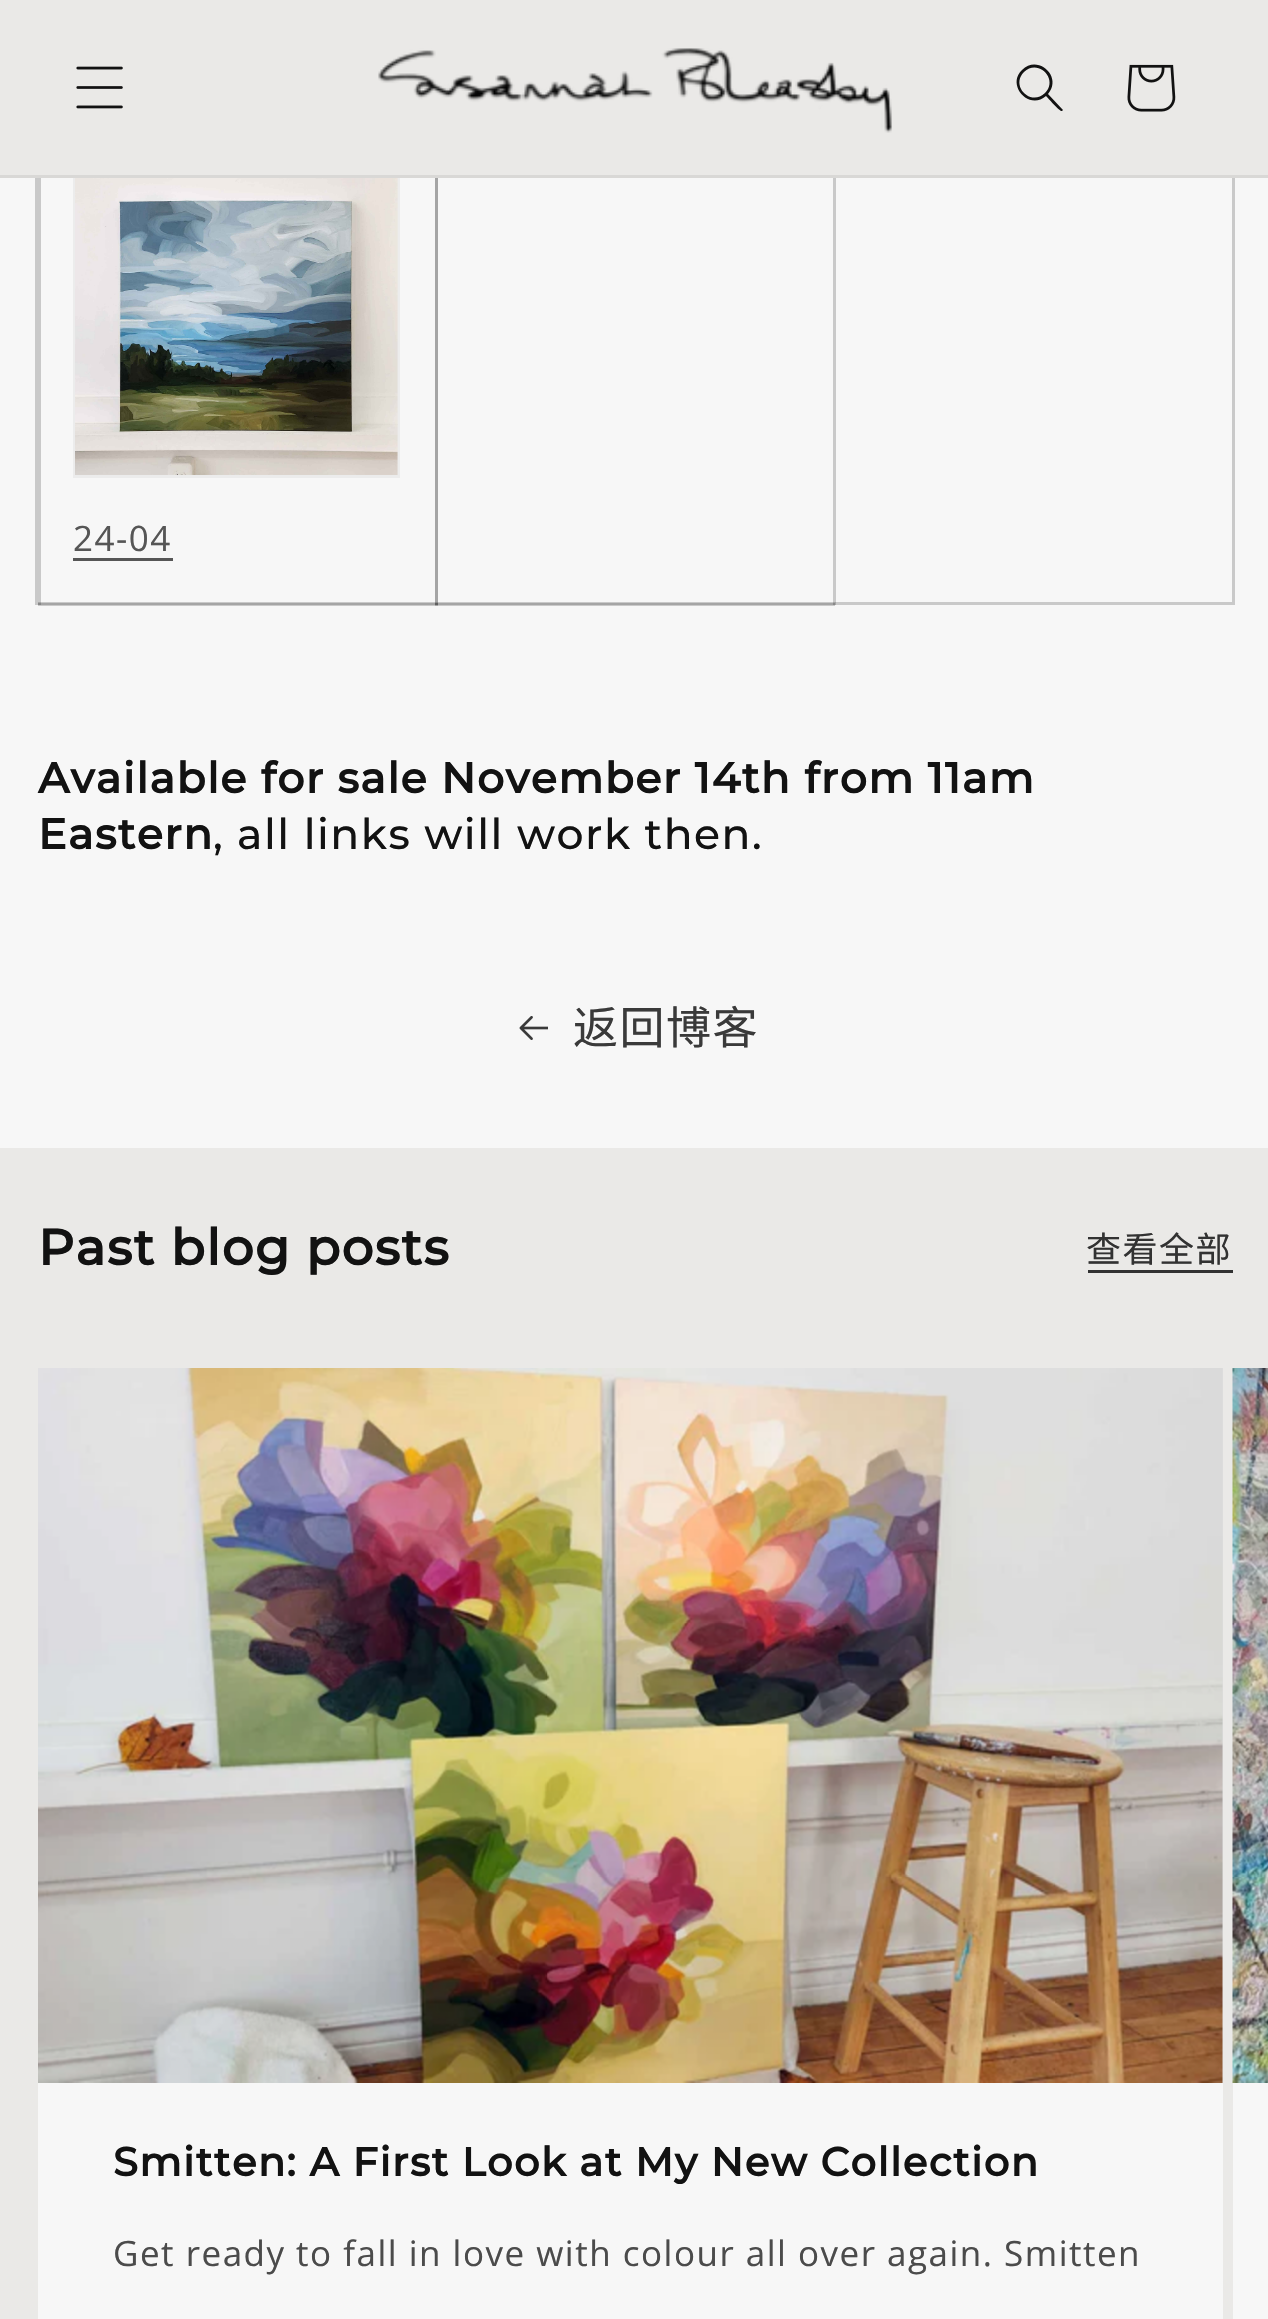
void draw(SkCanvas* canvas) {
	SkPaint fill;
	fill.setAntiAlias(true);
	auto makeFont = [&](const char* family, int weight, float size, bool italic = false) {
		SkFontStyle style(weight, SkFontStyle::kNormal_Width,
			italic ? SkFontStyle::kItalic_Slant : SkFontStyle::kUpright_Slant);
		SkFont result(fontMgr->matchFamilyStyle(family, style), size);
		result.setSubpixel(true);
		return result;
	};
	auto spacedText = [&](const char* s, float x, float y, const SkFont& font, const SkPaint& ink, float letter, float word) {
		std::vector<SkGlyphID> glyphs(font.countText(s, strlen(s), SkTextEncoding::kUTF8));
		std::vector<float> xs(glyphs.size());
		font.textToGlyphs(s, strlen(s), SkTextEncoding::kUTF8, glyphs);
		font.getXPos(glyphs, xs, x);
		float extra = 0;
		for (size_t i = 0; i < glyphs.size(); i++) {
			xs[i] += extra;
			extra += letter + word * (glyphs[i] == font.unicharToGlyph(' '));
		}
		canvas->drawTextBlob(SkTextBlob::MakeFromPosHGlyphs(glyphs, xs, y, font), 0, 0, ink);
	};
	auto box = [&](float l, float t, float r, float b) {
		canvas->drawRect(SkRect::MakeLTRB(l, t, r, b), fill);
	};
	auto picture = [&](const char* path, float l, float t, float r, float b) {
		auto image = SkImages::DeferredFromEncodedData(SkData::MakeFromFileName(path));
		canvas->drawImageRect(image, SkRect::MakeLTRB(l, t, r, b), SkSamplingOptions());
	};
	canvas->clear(0xFFF7F7F7);
	fill.setStyle(SkPaint::kStroke_Style);
	fill.setStrokeWidth(3);
	fill.setColor(0xFFC9C9C9);
	canvas->drawRect(SkRect::MakeLTRB(36.5f, -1.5f, 1233.5f, 603.5f), fill);
	fill.setColor(0xFFECECEC);
	canvas->drawRect(SkRect::MakeLTRB(74.5f, 151.5f, 398.5f, 476.5f), fill);
	fill.setStyle(SkPaint::kFill_Style);
	fill.setColor(0xFFEAE9E7);
	box(0, 0, 1268, 175);
	fill.setColor(0xFFD9D8D6);
	box(0, 175, 1268, 178);
	picture("image0.png", 76, 66, 123, 109);
	picture("image1.png", 378, 48, 892, 133);
	fill.setColor(0xFF121212);
	canvas->drawPath(SkPathBuilder(SkPathFillType::kEvenOdd).moveTo(1045, 93).cubicTo(1031, 107, 1010, 86, 1024, 72).cubicTo(1038, 58, 1059, 79, 1045, 93).close().moveTo(1046, 96).cubicTo(1029, 111, 1006, 85, 1022, 70).cubicTo(1038, 54, 1063, 77, 1048, 94).lineTo(1063, 110).lineTo(1062, 111).cubicTo(1060, 112, 1048, 98, 1046, 96).close().detach(), fill);
	picture("image2.png", 1127, 64, 1176, 112);
	fill.setColor(0x33121212);
	box(833, 178, 836, 605);
	box(435, 603, 835, 606);
	box(435, 178, 438, 605);
	box(435, 178, 438, 605);
	box(38, 603, 438, 606);
	box(38, 178, 41, 605);
	picture("image3.png", 75, 178, 398, 475);
	fill.setColor(0xFF565656);
	box(73, 558, 173, 561);
	picture("image4.png", 519, 1016, 548, 1040);
	fill.setColor(0xFFEAE9E7);
	box(0, 1148, 1268, 2319);
	fill.setColor(0xFF323232);
	box(1088, 1270, 1233, 1273);
	fill.setColor(0xFFF7F7F7);
	box(38, 2083, 1223, 2319);
	fill.setColor(0xFFDEDEDE);
	box(1222, 1368, 1223, 2083);
	picture("image5.png", 38, 1368, 1223, 2083);
	fill.setColor(0xFFF7F7F7);
	box(1233, 2083, 1268, 2319);
	picture("image6.png", 1232, 1368, 1268, 2083);
	auto font1 = makeFont("Open Sans", 400, 35);
	fill.setColor(0xFF565656);
	spacedText("24-04", 73, 551, font1, fill, 1.5f, 0);
	auto font2 = makeFont("Montserrat", 700, 42.5f);
	fill.setColor(0xFF121212);
	spacedText("Available for sale November 14th from 11am", 38, 793, font2, fill, 1.5f, 0);
	spacedText("Eastern", 38, 849, font2, fill, 1.5f, 0);
	auto font3 = makeFont("Montserrat", 500, 42.5f);
	spacedText(", all links will work then.", 213, 849, font3, fill, 1.5f, 0);
	auto font4 = makeFont("Noto Sans CJK SC", 400, 45);
	fill.setColor(0xFF3A3A3A);
	spacedText("返回博客", 573, 1044, font4, fill, 1.5f, 0);
	auto font5 = makeFont("Montserrat", 700, 50);
	fill.setColor(0xFF121212);
	spacedText("Past blog posts", 38, 1265, font5, fill, 1.5f, 0);
	auto font6 = makeFont("Noto Sans CJK SC", 400, 35);
	fill.setColor(0xFF323232);
	spacedText("查看全部", 1086, 1262, font6, fill, 1.5f, 0);
	auto font7 = makeFont("Montserrat", 700, 40);
	fill.setColor(0xFF121212);
	spacedText("Smitten: A First Look at My New Collection", 113, 2176, font7, fill, 1.5f, 0);
	fill.setColor(0xFF4B4B4B);
	spacedText("Get ready to fall in love with colour all over again. Smitten", 113, 2266, font1, fill, 1.5f, 0);
}
